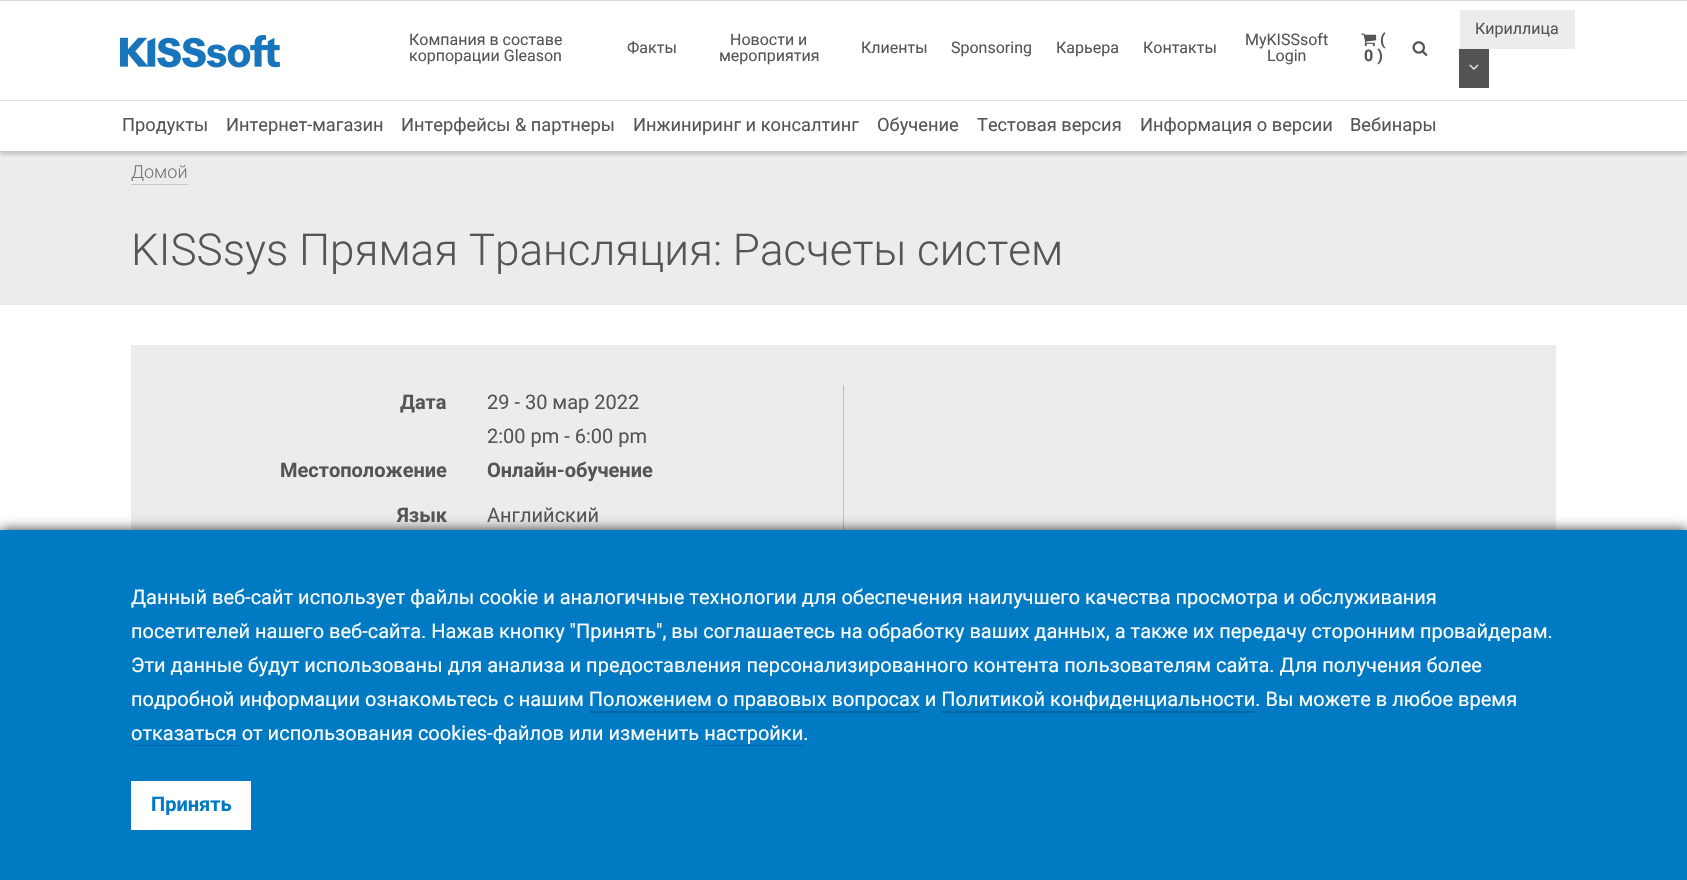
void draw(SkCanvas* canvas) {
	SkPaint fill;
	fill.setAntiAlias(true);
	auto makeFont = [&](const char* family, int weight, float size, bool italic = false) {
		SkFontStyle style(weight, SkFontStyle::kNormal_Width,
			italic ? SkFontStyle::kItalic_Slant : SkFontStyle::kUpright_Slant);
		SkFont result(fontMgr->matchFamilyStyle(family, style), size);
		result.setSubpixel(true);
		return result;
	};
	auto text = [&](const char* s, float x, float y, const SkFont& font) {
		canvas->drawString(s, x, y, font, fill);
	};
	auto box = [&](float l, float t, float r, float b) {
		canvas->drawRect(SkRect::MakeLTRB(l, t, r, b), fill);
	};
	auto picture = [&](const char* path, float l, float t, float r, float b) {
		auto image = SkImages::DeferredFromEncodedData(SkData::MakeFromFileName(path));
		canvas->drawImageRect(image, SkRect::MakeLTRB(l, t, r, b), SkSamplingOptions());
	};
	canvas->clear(0xFFFFFFFF);
	fill.setColor(0xFFD9D9D9);
	canvas->drawPath(SkPathBuilder().moveTo(0, 0).lineTo(0, 1).lineTo(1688, 1).lineTo(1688, -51).lineTo(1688, 0).close().detach(), fill);
	picture("image0.png", 120, 35, 280, 68);
	fill.setColor(0xFFECECEC);
	box(1460, 10, 1575, 49);
	fill.setColor(0xFF535353);
	box(1459, 49, 1489, 88);
	picture("image1.png", 1469, 64, 1479, 70);
	picture("image2.png", 1361, 33, 1377, 47);
	picture("image3.png", 1412, 41, 1428, 56);
	fill.setColor(0xFFECECEC);
	box(0, 151, 1687, 305);
	canvas->save();
	canvas->clipRect(SkRect::MakeLTRB(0, 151, 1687, 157));
	fill.setColor(0x33000000);
	fill.setMaskFilter(SkMaskFilter::MakeBlur(kNormal_SkBlurStyle, 2.5f));
	canvas->drawRect(SkRect::MakeLTRB(0, 103, 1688, 154), fill);
	fill.setMaskFilter(nullptr);
	canvas->restore();
	fill.setColor(0xFFE0E0E0);
	box(0, 100, 1687, 101);
	fill.setColor(0xFFC9C9C9);
	canvas->drawPath(SkPathBuilder().moveTo(131, 164).lineTo(131, 185).lineTo(188, 185).lineTo(188, 164).lineTo(188, 184).lineTo(131, 184).close().detach(), fill);
	fill.setColor(0xFFECECEC);
	box(131, 345, 1556, 530);
	fill.setColor(0xFFBDBDBD);
	box(843, 385, 844, 530);
	fill.setColor(0xCC000000);
	fill.setMaskFilter(SkMaskFilter::MakeBlur(kNormal_SkBlurStyle, 6));
	canvas->drawRect(SkRect::MakeLTRB(0, 530, 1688, 880), fill);
	fill.setMaskFilter(nullptr);
	fill.setColor(0xFF007AC3);
	box(0, 530, 1687, 880);
	fill.setColor(0xFF0068A6);
	box(589, 711, 920, 713);
	canvas->drawPath(SkPathBuilder().moveTo(941, 689).lineTo(941, 713).lineTo(1255, 713).lineTo(1255, 711).lineTo(941, 711).close().detach(), fill);
	canvas->drawPath(SkPathBuilder().moveTo(131, 723).lineTo(131, 746).lineTo(238, 746).lineTo(238, 723).lineTo(238, 745).lineTo(131, 745).close().detach(), fill);
	canvas->drawPath(SkPathBuilder().moveTo(705, 745).lineTo(705, 746).lineTo(804, 746).lineTo(804, 723).lineTo(804, 745).close().detach(), fill);
	fill.setColor(0xFFFFFFFF);
	box(131, 781, 251, 830);
	auto font1 = makeFont("Roboto", 400, 16);
	fill.setColor(0xFF555555);
	text("Кириллица", 1475, 34, font1);
	text("Компания в составе", 409, 45, font1);
	text("корпорации Gleason", 409, 61, font1);
	text("Факты", 627, 53, font1);
	text("Новости и", 730, 45, font1);
	text("мероприятия", 719, 61, font1);
	text("Клиенты", 861, 53, font1);
	text("Sponsoring", 951, 53, font1);
	text("Карьера", 1056, 53, font1);
	text("Контакты", 1143, 53, font1);
	text("MyKISSsoft", 1245, 45, font1);
	text("Login", 1267, 61, font1);
	auto font2 = makeFont("Roboto", 700, 16);
	text("(", 1380, 45, font2);
	text("0 )", 1364, 61, font2);
	auto font3 = makeFont("Roboto", 400, 18.25f);
	text("Продукты", 122, 131, font3);
	text("Интернет-магазин", 226, 131, font3);
	text("Интерфейсы & партнеры", 401, 131, font3);
	text("Инжиниринг и консалтинг", 633, 131, font3);
	text("Обучение", 877, 131, font3);
	text("Тестовая версия", 977, 131, font3);
	text("Информация о версии", 1140, 131, font3);
	text("Вебинары", 1350, 131, font3);
	auto font4 = makeFont("Roboto", 300, 18);
	fill.setColor(0xFF757575);
	text("Домой", 131, 178, font4);
	auto font5 = makeFont("Roboto", 300, 44);
	fill.setColor(0xFF555555);
	text("KISSsys Прямая Трансляция: Расчеты систем", 131, 265, font5);
	auto font6 = makeFont("Roboto", 700, 20);
	text("Дата", 400, 409, font6);
	auto font7 = makeFont("Roboto", 400, 20);
	text("29 - 30 мар 2022", 487, 409, font7);
	text("2:00 pm - 6:00 pm", 487, 443, font7);
	text("Местоположение", 280, 477, font6);
	text("Онлайн-обучение", 487, 477, font6);
	text("Язык", 397, 522, font6);
	text("Английский", 487, 522, font7);
	fill.setColor(0xFFFFFFFF);
	text("Данный веб-сайт использует файлы cookie и аналогичные технологии для обеспечения наилучшего качества просмотра и обслуживания", 131, 604, font7);
	text("посетителей нашего веб-сайта. Нажав кнопку \"Принять\", вы соглашаетесь на обработку ваших данных, а также их передачу сторонним провайдерам.", 131, 638, font7);
	text("Эти данные будут использованы для анализа и предоставления персонализированного контента пользователям сайта. Для получения более", 131, 672, font7);
	text("подробной информации ознакомьтесь с нашим Положением о правовых вопросах и Политикой конфиденциальности. Вы можете в любое время", 131, 706, font7);
	text("отказаться от использования cookies-файлов или изменить настройки.", 131, 740, font7);
	fill.setColor(0xFF007AC3);
	text("Принять", 151, 811, font6);
}
